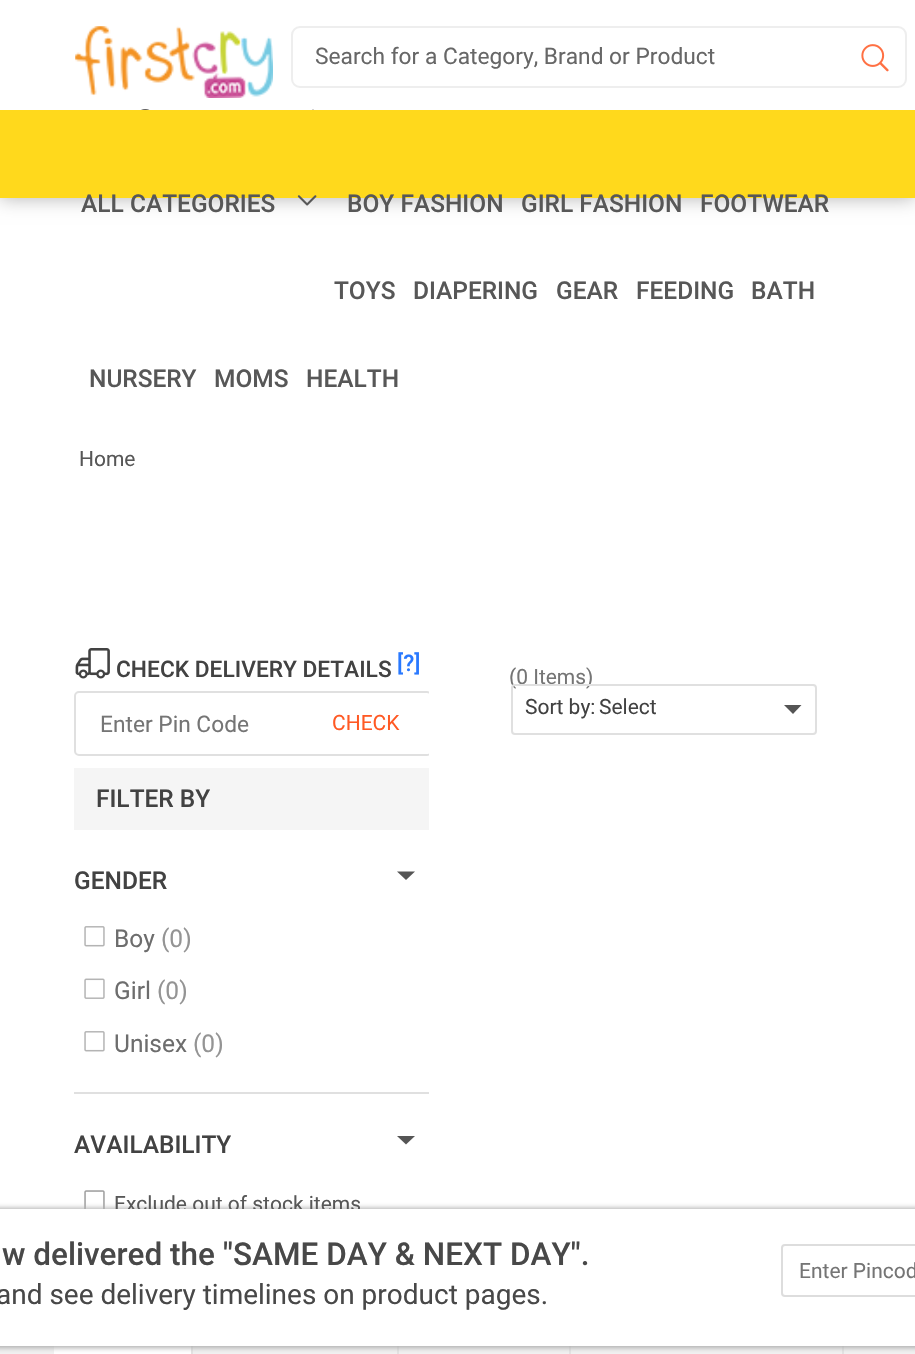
void draw(SkCanvas* canvas) {
	SkPaint fill;
	fill.setAntiAlias(true);
	auto makeFont = [&](const char* family, int weight, float size, bool italic = false) {
		SkFontStyle style(weight, SkFontStyle::kNormal_Width,
			italic ? SkFontStyle::kItalic_Slant : SkFontStyle::kUpright_Slant);
		SkFont result(fontMgr->matchFamilyStyle(family, style), size);
		result.setSubpixel(true);
		return result;
	};
	auto text = [&](const char* s, float x, float y, const SkFont& font) {
		canvas->drawString(s, x, y, font, fill);
	};
	auto box = [&](float l, float t, float r, float b) {
		canvas->drawRect(SkRect::MakeLTRB(l, t, r, b), fill);
	};
	auto picture = [&](const char* path, float l, float t, float r, float b) {
		auto image = SkImages::DeferredFromEncodedData(SkData::MakeFromFileName(path));
		canvas->drawImageRect(image, SkRect::MakeLTRB(l, t, r, b), SkSamplingOptions());
	};
	canvas->clear(0xFFFFFFFF);
	fill.setColor(0x4D000000);
	fill.setMaskFilter(SkMaskFilter::MakeBlur(kNormal_SkBlurStyle, 9));
	canvas->drawRect(SkRect::MakeLTRB(0, 0, 915, 198), fill);
	fill.setMaskFilter(nullptr);
	fill.setColor(0xFFFFFFFF);
	box(0, 0, 915, 110);
	picture("image0.png", 75, 26, 273, 98);
	fill.setStyle(SkPaint::kStroke_Style);
	fill.setStrokeWidth(2);
	fill.setColor(0xFFEEEEEE);
	canvas->drawRoundRect(SkRect::MakeLTRB(292, 27, 906, 87), 8, 8, fill);
	picture("image1.png", 861, 44, 889, 72);
	fill.setStyle(SkPaint::kFill_Style);
	fill.setColor(0xFFD4D4D4);
	box(312, 109, 314, 110);
	picture("image2.png", 141, 109, 150, 110);
	fill.setColor(0xFFFFD91C);
	box(0, 110, 915, 198);
	picture("image3.png", 297, 195, 317, 206);
	picture("image4.png", 75, 648, 110, 679);
	canvas->save();
	canvas->clipRect(SkRect::MakeLTRB(74, 642, 429, 761));
	fill.setStyle(SkPaint::kStroke_Style);
	fill.setColor(0xFFE0E0E0);
	canvas->drawRoundRect(SkRect::MakeLTRB(75, 692, 431, 755), 4, 4, fill);
	canvas->restore();
	fill.setStyle(SkPaint::kFill_Style);
	fill.setColor(0xFFF5F5F5);
	box(74, 768, 429, 830);
	fill.setColor(0xFFE0E0E0);
	box(74, 1092, 429, 1094);
	fill.setColor(0xFF555555);
	canvas->drawPath(SkPathBuilder().moveTo(397, 871.5f).lineTo(415, 871.5f).lineTo(406, 880).close().detach(), fill);
	picture("image5.png", 84, 926, 105, 947);
	picture("image6.png", 84, 978, 105, 999);
	picture("image5.png", 84, 1031, 105, 1052);
	canvas->drawPath(SkPathBuilder().moveTo(397, 1136).lineTo(415, 1136).lineTo(406, 1144.5f).close().detach(), fill);
	picture("image7.png", 84, 1190, 105, 1209);
	fill.setColor(0xFFF1F1F1);
	box(0, 1346, 915, 1354);
	fill.setColor(0xFFFFFFFF);
	box(54, 1346, 191, 1354);
	fill.setColor(0xFFE3E3E3);
	box(191, 1346, 193, 1354);
	box(397, 1346, 399, 1354);
	box(569, 1346, 571, 1354);
	box(842, 1346, 844, 1354);
	fill.setColor(0xFFAFAFAF);
	fill.setMaskFilter(SkMaskFilter::MakeBlur(kNormal_SkBlurStyle, 2.5f));
	canvas->drawRoundRect(SkRect::MakeLTRB(-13, 1208, 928, 1348), 5, 5, fill);
	fill.setMaskFilter(nullptr);
	auto font1 = makeFont("Roboto", 400, 22.75f);
	fill.setColor(0xFF676767);
	text("Search for a Category, Brand or Product", 315, 64, font1);
	auto font2 = makeFont("Roboto", 500, 24.5f);
	fill.setColor(0xFF575757);
	text("ALL CATEGORIES", 81, 212, font2);
	text("BOY FASHION", 347, 212, font2);
	text("GIRL FASHION", 521, 212, font2);
	text("FOOTWEAR", 700, 212, font2);
	text("TOYS", 334, 299, font2);
	text("DIAPERING", 413, 299, font2);
	text("GEAR", 556, 299, font2);
	text("FEEDING", 636, 299, font2);
	text("BATH", 751, 299, font2);
	text("NURSERY", 89, 387, font2);
	text("MOMS", 214, 387, font2);
	text("HEALTH", 306, 387, font2);
	auto font3 = makeFont("Roboto", 400, 21);
	text("Home", 79, 466, font3);
	auto font4 = makeFont("Roboto", 500, 22.75f);
	fill.setColor(0xFF424242);
	text("CHECK DELIVERY DETAILS", 116, 677, font4);
	fill.setColor(0xFF2979FF);
	text("[?]", 397, 671, font4);
	fill.setColor(0xFF757575);
	text("Enter Pin Code", 100, 732, font1);
	fill.setColor(0xFFFF5924);
	text("CHECK", 332, 730, font3);
	fill.setColor(0xFF424242);
	text("FILTER BY", 96, 807, font2);
	text("GENDER", 74, 889, font2);
	auto font5 = makeFont("Roboto", 400, 24.5f);
	fill.setColor(0xFF6D6D6D);
	text("Boy", 114, 947, font5);
	fill.setColor(0xFF949494);
	text("(0)", 161, 947, font5);
	fill.setColor(0xFF6D6D6D);
	text("Girl", 114, 999, font5);
	fill.setColor(0xFF949494);
	text("(0)", 157, 999, font5);
	fill.setColor(0xFF6D6D6D);
	text("Unisex", 114, 1052, font5);
	fill.setColor(0xFF949494);
	text("(0)", 193, 1052, font5);
	fill.setColor(0xFF424242);
	text("AVAILABILITY", 74, 1153, font2);
	fill.setColor(0xFF575757);
	text("Exclude out of stock items", 114, 1211, font3);
	fill.setColor(0xFF757575);
	text("(0 Items)", 509, 684, font3);
	fill.setStyle(SkPaint::kStroke_Style);
	fill.setColor(0xFFE0E0E0);
	canvas->drawRoundRect(SkRect::MakeLTRB(512, 685, 816, 734), 3, 3, fill);
	fill.setStyle(SkPaint::kFill_Style);
	fill.setColor(0xFF424242);
	text("Sort by:", 525, 714, font3);
	text("Select", 599, 714, font3);
	fill.setColor(0xFF555555);
	canvas->drawPath(SkPathBuilder().moveTo(784, 705).lineTo(801.5f, 705).lineTo(793, 714).close().detach(), fill);
	fill.setColor(0xFFFFFFFF);
	box(0, 1209, 915, 1346);
	auto font6 = makeFont("Roboto", 500, 31.5f);
	fill.setColor(0xFF484848);
	text("w delivered the \"SAME DAY & NEXT DAY\".", 2, 1265, font6);
	auto font7 = makeFont("Roboto", 400, 28);
	text("and see delivery timelines on product pages.", -4, 1304, font7);
	fill.setStyle(SkPaint::kStroke_Style);
	fill.setColor(0xFFDDDDDD);
	canvas->drawRoundRect(SkRect::MakeLTRB(782, 1245, 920, 1296), 3, 3, fill);
	fill.setStyle(SkPaint::kFill_Style);
	fill.setColor(0xFF757575);
	text("Enter Pincod", 799, 1278, font3);
}
